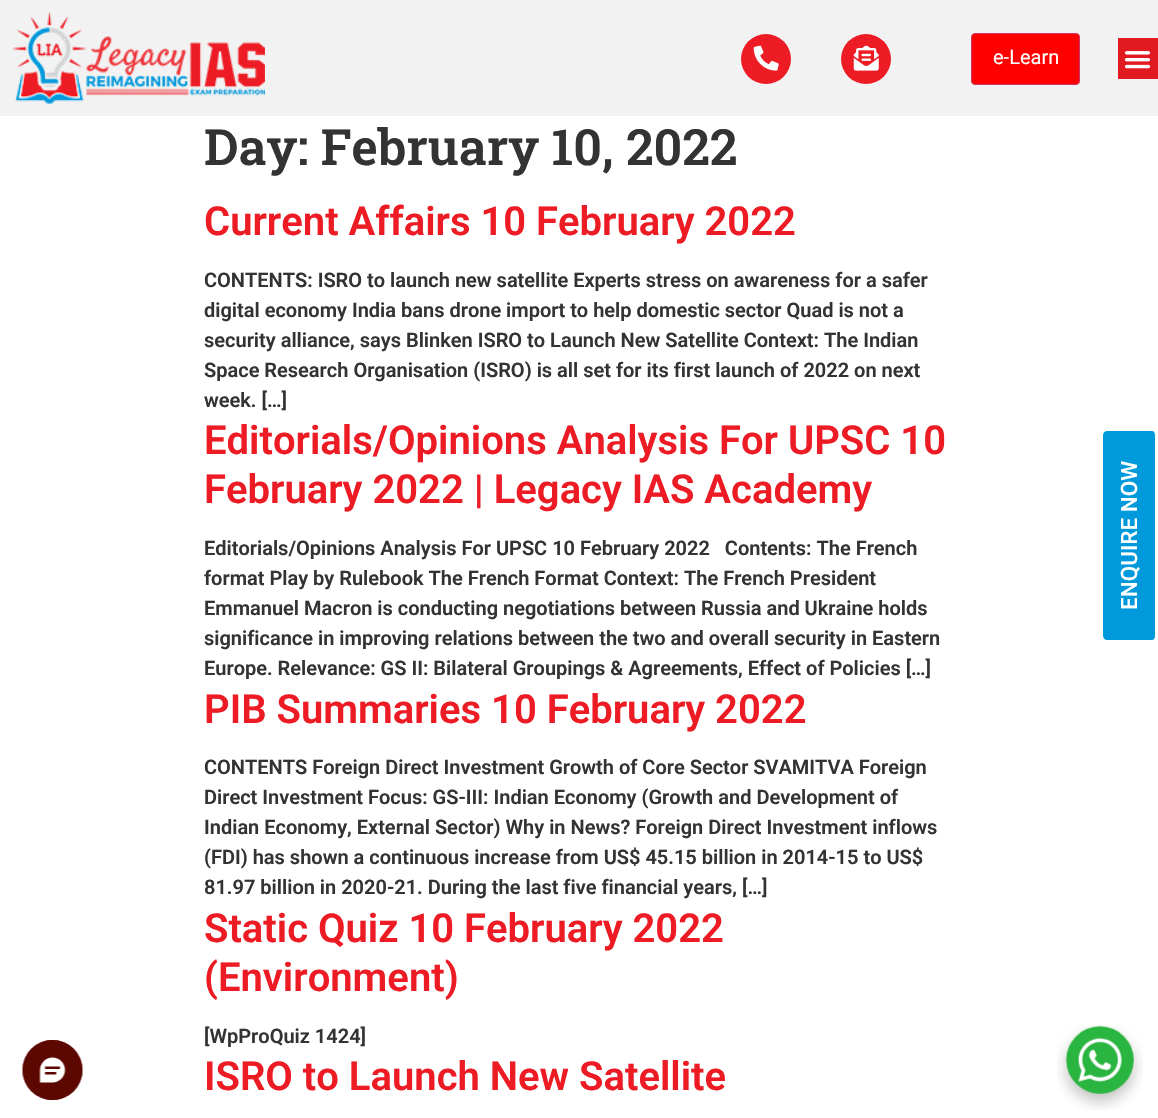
void draw(SkCanvas* canvas) {
	SkPaint fill;
	fill.setAntiAlias(true);
	auto makeFont = [&](const char* family, int weight, float size, bool italic = false) {
		SkFontStyle style(weight, SkFontStyle::kNormal_Width,
			italic ? SkFontStyle::kItalic_Slant : SkFontStyle::kUpright_Slant);
		SkFont result(fontMgr->matchFamilyStyle(family, style), size);
		result.setSubpixel(true);
		return result;
	};
	auto text = [&](const char* s, float x, float y, const SkFont& font) {
		canvas->drawString(s, x, y, font, fill);
	};
	auto box = [&](float l, float t, float r, float b) {
		canvas->drawRect(SkRect::MakeLTRB(l, t, r, b), fill);
	};
	auto roundBox = [&](float l, float t, float r, float b, float radius) {
		canvas->drawRoundRect(SkRect::MakeLTRB(l, t, r, b), radius, radius, fill);
	};
	auto picture = [&](const char* path, float l, float t, float r, float b) {
		auto image = SkImages::DeferredFromEncodedData(SkData::MakeFromFileName(path));
		canvas->drawImageRect(image, SkRect::MakeLTRB(l, t, r, b), SkSamplingOptions());
	};
	canvas->clear(0xFFFFFFFF);
	fill.setColor(0xFFF2F2F2);
	box(0, 0, 1158, 116);
	picture("image0.png", 12, 12, 265, 104);
	fill.setColor(0xFFED1B24);
	canvas->drawCircle(766, 59, 25, fill);
	picture("image1.png", 753, 45, 779, 71);
	canvas->drawCircle(866, 59, 25, fill);
	picture("image2.png", 853, 45, 879, 71);
	fill.setColor(0xFFFF0000);
	canvas->drawRoundRect(SkRect::MakeLTRB(971.5f, 33.5f, 1079.5f, 84.5f), 3.5f, 3.5f, fill);
	fill.setStyle(SkPaint::kStroke_Style);
	fill.setStrokeWidth(1);
	fill.setColor(0xFFCC3366);
	canvas->drawRoundRect(SkRect::MakeLTRB(971.5f, 33.5f, 1079.5f, 84.5f), 3.5f, 3.5f, fill);
	fill.setStyle(SkPaint::kFill_Style);
	fill.setColor(0xFFED1B24);
	box(1118, 38, 1158, 79);
	fill.setColor(0xFFE11A22);
	roundBox(1118, 38, 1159, 79, 4);
	picture("image3.png", 1124, 51, 1151, 69);
	fill.setColor(0xFF0099DC);
	canvas->drawPath(SkPathBuilder().moveTo(1103, 636).lineTo(1103, 435).cubicTo(1103, 433, 1105, 431, 1107, 431).lineTo(1152, 431).cubicTo(1154, 431, 1155, 433, 1155, 435).lineTo(1155, 636).cubicTo(1155, 638, 1154, 640, 1152, 640).lineTo(1107, 640).cubicTo(1105, 640, 1103, 638, 1103, 636).close().detach(), fill);
	picture("image4.png", 22, 1040, 83, 1100);
	picture("image5.png", 1057, 1025, 1143, 1110);
	auto font1 = makeFont("Roboto", 400, 20);
	fill.setColor(0xFFFFFFFF);
	text("e-Learn", 993, 64, font1);
	auto font2 = makeFont("Roboto Slab", 600, 50);
	fill.setColor(0xFF333333);
	text("Day: February 10, 2022", 204, 165, font2);
	auto font3 = makeFont("Roboto", 600, 40);
	fill.setColor(0xFFED1B24);
	text("Current Affairs 10 February 2022", 204, 235, font3);
	auto font4 = makeFont("Roboto", 600, 20);
	fill.setColor(0xFF333333);
	text("CONTENTS: ISRO to launch new satellite Experts stress on awareness for a safer", 204, 287, font4);
	text("digital economy India bans drone import to help domestic sector Quad is not a", 204, 317, font4);
	text("security alliance, says Blinken ISRO to Launch New Satellite Context: The Indian", 204, 347, font4);
	text("Space Research Organisation (ISRO) is all set for its first launch of 2022 on next", 204, 377, font4);
	text("week. […]", 204, 407, font4);
	fill.setColor(0xFFED1B24);
	text("Editorials/Opinions Analysis For UPSC 10", 204, 454, font3);
	text("February 2022 | Legacy IAS Academy", 204, 503, font3);
	fill.setColor(0xFF333333);
	text("Editorials/Opinions Analysis For UPSC 10 February 2022   Contents: The French", 204, 555, font4);
	text("format Play by Rulebook The French Format Context: The French President", 204, 585, font4);
	text("Emmanuel Macron is conducting negotiations between Russia and Ukraine holds", 204, 615, font4);
	text("significance in improving relations between the two and overall security in Eastern", 204, 645, font4);
	text("Europe. Relevance: GS II: Bilateral Groupings & Agreements, Effect of Policies […]", 204, 675, font4);
	fill.setColor(0xFFED1B24);
	text("PIB Summaries 10 February 2022", 204, 723, font3);
	fill.setColor(0xFF333333);
	text("CONTENTS Foreign Direct Investment Growth of Core Sector SVAMITVA Foreign", 204, 774, font4);
	text("Direct Investment Focus: GS-III: Indian Economy (Growth and Development of", 204, 804, font4);
	text("Indian Economy, External Sector) Why in News? Foreign Direct Investment inflows", 204, 834, font4);
	text("(FDI) has shown a continuous increase from US$ 45.15 billion in 2014-15 to US$", 204, 864, font4);
	text("81.97 billion in 2020-21. During the last five financial years, […]", 204, 894, font4);
	fill.setColor(0xFFED1B24);
	text("Static Quiz 10 February 2022", 204, 942, font3);
	text("(Environment)", 204, 991, font3);
	fill.setColor(0xFF333333);
	text("[WpProQuiz 1424]", 204, 1043, font4);
	fill.setColor(0xFFED1B24);
	text("ISRO to Launch New Satellite", 204, 1090, font3);
	auto font5 = makeFont("Roboto", 500, 22.5f);
	fill.setColor(0xFFFFFFFF);
	canvas->save();
	canvas->rotate(-90, 1137, 610);
	text("ENQUIRE NOW", 1137, 610, font5);
	canvas->restore();
}
